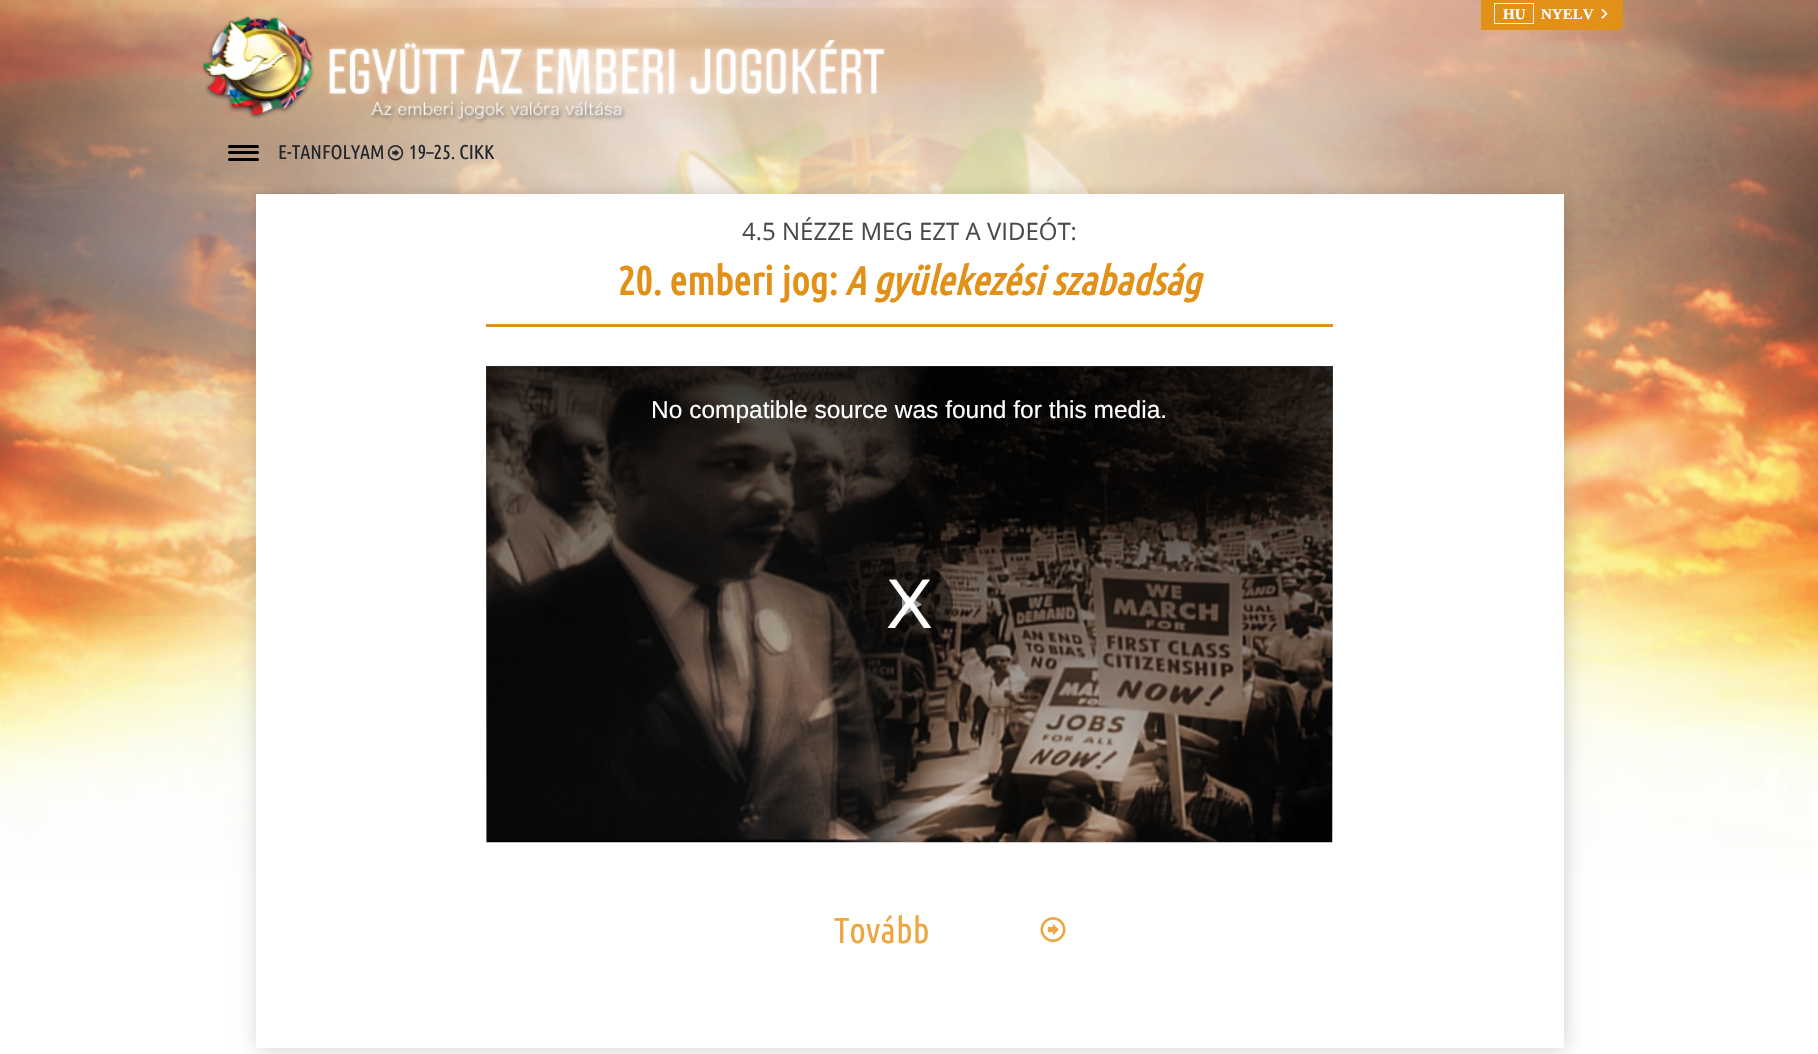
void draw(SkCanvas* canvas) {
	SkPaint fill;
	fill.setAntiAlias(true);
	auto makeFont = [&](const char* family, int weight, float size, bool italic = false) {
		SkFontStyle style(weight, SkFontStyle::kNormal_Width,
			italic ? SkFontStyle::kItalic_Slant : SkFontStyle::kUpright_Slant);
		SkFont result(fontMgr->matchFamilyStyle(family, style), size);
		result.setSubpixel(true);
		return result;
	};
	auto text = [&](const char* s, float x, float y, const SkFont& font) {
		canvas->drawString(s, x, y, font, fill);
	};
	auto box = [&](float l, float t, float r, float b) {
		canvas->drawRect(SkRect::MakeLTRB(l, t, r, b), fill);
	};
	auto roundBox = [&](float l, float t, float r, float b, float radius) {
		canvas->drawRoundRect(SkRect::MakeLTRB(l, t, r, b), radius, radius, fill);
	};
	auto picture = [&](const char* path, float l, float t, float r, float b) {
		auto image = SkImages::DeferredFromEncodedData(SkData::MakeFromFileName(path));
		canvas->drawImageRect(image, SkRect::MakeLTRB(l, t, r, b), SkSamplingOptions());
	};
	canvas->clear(0xFFFFFFFF);
	picture("image0.png", 0, 0, 1818, 875);
	picture("image1.png", 202, 7, 1129, 124);
	fill.setColor(0xFFE19118);
	canvas->drawPath(SkPathBuilder().moveTo(1481, 0).lineTo(1623, 0).lineTo(1623, 25).cubicTo(1623, 28, 1621, 30, 1618, 30).lineTo(1481, 30).close().detach(), fill);
	fill.setStyle(SkPaint::kStroke_Style);
	fill.setStrokeWidth(1);
	fill.setColor(0xFFEEEEEE);
	canvas->drawRect(SkRect::MakeLTRB(1494.5f, 3.5f, 1533.5f, 23.5f), fill);
	picture("image2.png", 1601, 9, 1608, 19);
	fill.setStyle(SkPaint::kFill_Style);
	fill.setColor(0xFF000000);
	roundBox(228, 151, 259, 154, 1.5f);
	roundBox(228, 145, 259, 148, 1.5f);
	roundBox(228, 158, 259, 161, 1.5f);
	picture("image3.png", 387, 145, 404, 161);
	fill.setColor(0x2E000000);
	fill.setMaskFilter(SkMaskFilter::MakeBlur(kNormal_SkBlurStyle, 9.5f));
	canvas->drawRect(SkRect::MakeLTRB(258, 195, 1565, 1049), fill);
	fill.setMaskFilter(nullptr);
	fill.setColor(0xFFFFFFFF);
	box(256, 194, 1564, 1048);
	fill.setColor(0xFFE19118);
	box(486, 324, 1333, 327);
	picture("image4.png", 486, 366, 1333, 843);
	fill.setColor(0x73000000);
	canvas->drawCircle(909, 605, 44, fill);
	fill.setColor(0xFFFFFFFF);
	canvas->drawPath(SkPathBuilder().moveTo(902, 591.5f).lineTo(902, 617).lineTo(922, 604.5f).close().detach(), fill);
	{
		const SkColor colors[] = {0xCC000000, 0x00000000};
		const float stops[] = {0, 1};
		const SkPoint ends[] = {{909, 366}, {909, 843}};
		fill.setShader(SkGradientShader::MakeLinear(ends, colors, stops, 2, SkTileMode::kClamp));
		fill.setAlpha(255);
	}
	box(486, 366, 1333, 830);
	picture("image5.png", 1040, 917, 1066, 942);
	auto font1 = makeFont("Liberation Serif", 700, 15);
	fill.setShader(nullptr);
	fill.setColor(0xFFFFFFFF);
	text("HU", 1503, 19, font1);
	text("NYELV", 1541, 19, font1);
	auto font2 = makeFont("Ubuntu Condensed", 400, 20);
	fill.setColor(0xFF212529);
	text("E-TANFOLYAM", 278, 159, font2);
	text("19–25. CIKK", 409, 159, font2);
	auto font3 = makeFont("Open Sans", 400, 24);
	fill.setColor(0xFF4A494A);
	text("4.5 NÉZZE MEG EZT A VIDEÓT:", 742, 240, font3);
	auto font4 = makeFont("Ubuntu Condensed", 700, 40);
	fill.setColor(0xFFE19118);
	text("20. emberi jog:", 618, 295, font4);
	auto font5 = makeFont("Ubuntu Condensed", 700, 40, true);
	text("A gyülekezési szabadság", 845, 295, font5);
	auto font6 = makeFont("Liberation Sans", 400, 24.5f);
	fill.setColor(0xFFFFFFFF);
	text("No compatible source was found for this media.", 651, 418, font6);
	auto font7 = makeFont("Liberation Sans", 400, 70);
	text("X", 886, 628, font7);
	auto font8 = makeFont("Ubuntu Condensed", 400, 36);
	fill.setColor(0xFFEBA741);
	text("Tovább", 834, 943, font8);
}
